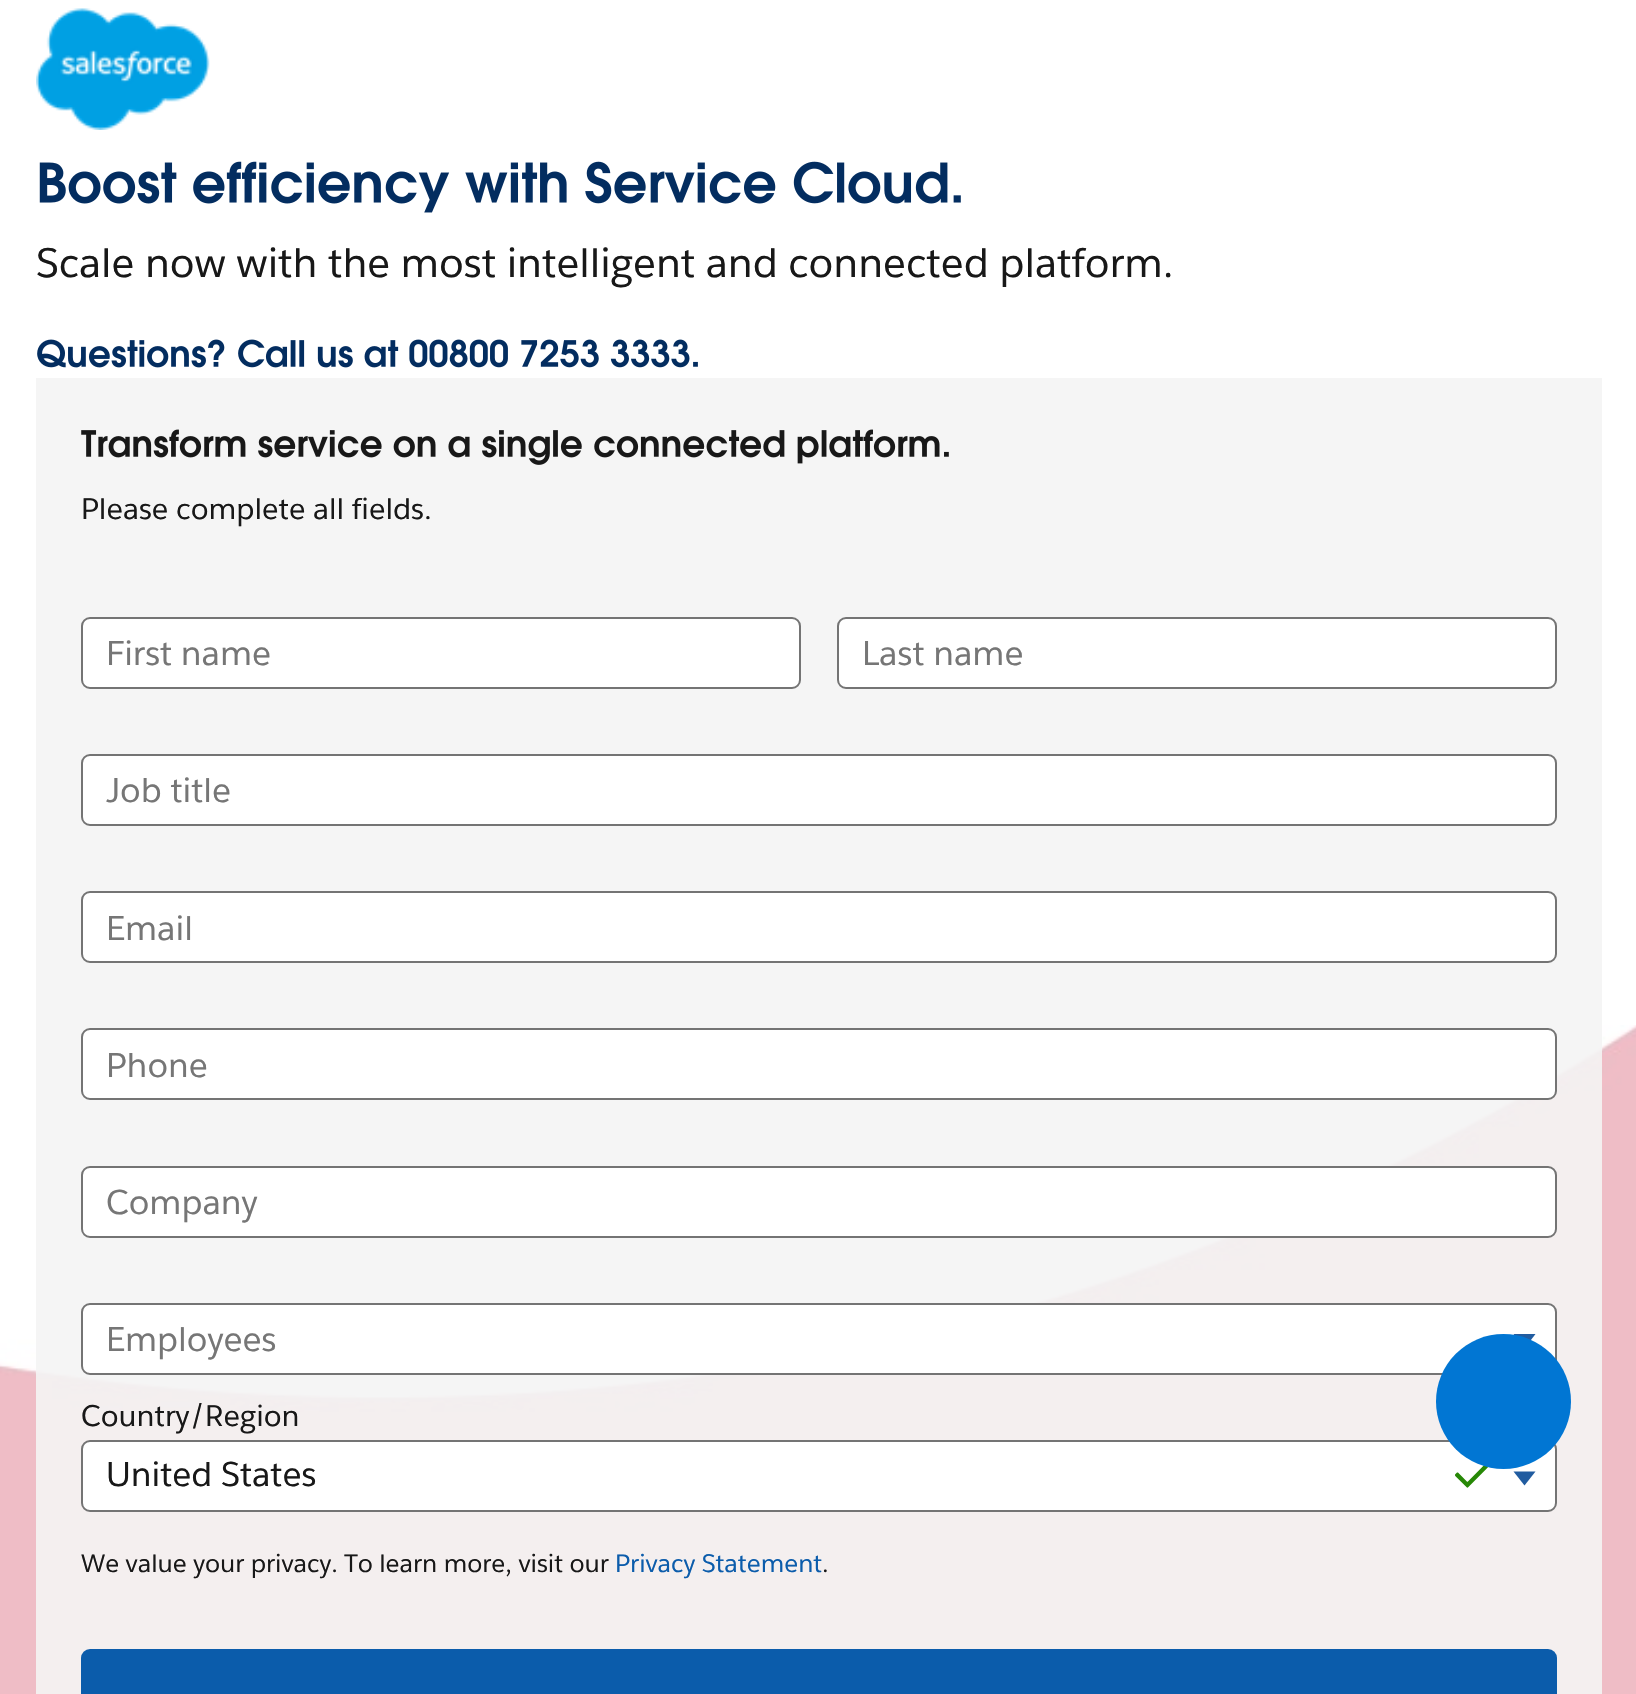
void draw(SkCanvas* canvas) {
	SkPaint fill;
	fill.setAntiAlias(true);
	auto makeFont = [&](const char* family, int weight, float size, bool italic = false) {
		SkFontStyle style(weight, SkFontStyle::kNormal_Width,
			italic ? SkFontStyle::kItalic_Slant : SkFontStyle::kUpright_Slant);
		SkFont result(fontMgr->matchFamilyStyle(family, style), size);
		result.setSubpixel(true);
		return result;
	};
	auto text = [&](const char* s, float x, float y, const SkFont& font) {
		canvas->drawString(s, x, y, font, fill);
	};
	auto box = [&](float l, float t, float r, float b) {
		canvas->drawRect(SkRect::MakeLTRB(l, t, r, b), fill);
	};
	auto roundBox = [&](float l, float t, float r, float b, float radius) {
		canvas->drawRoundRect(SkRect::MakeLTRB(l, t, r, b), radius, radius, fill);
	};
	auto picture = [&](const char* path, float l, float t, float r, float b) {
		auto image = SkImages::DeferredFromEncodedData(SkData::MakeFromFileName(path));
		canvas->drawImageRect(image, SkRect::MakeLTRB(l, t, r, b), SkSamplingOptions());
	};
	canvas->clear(0xFFFFFFFF);
	picture("image0.png", 36, 8, 210, 130);
	picture("image1.png", 39, 161, 961, 213);
	picture("image2.png", 37, 339, 698, 368);
	fill.setColor(0xFFF5F5F5);
	box(36, 378, 1602, 1025);
	picture("image3.png", 81, 429, 949, 465);
	fill.setColor(0xFFFFFFFF);
	canvas->drawRoundRect(SkRect::MakeLTRB(82, 618, 800, 688), 8, 8, fill);
	fill.setStyle(SkPaint::kStroke_Style);
	fill.setStrokeWidth(2);
	fill.setColor(0xFF747474);
	canvas->drawRoundRect(SkRect::MakeLTRB(82, 618, 800, 688), 8, 8, fill);
	fill.setStyle(SkPaint::kFill_Style);
	fill.setColor(0xFFFFFFFF);
	canvas->drawRoundRect(SkRect::MakeLTRB(838, 618, 1556, 688), 8, 8, fill);
	fill.setStyle(SkPaint::kStroke_Style);
	fill.setColor(0xFF747474);
	canvas->drawRoundRect(SkRect::MakeLTRB(838, 618, 1556, 688), 8, 8, fill);
	fill.setStyle(SkPaint::kFill_Style);
	fill.setColor(0xFFFFFFFF);
	canvas->drawRoundRect(SkRect::MakeLTRB(82, 755, 1556, 825), 8, 8, fill);
	fill.setStyle(SkPaint::kStroke_Style);
	fill.setColor(0xFF747474);
	canvas->drawRoundRect(SkRect::MakeLTRB(82, 755, 1556, 825), 8, 8, fill);
	fill.setStyle(SkPaint::kFill_Style);
	fill.setColor(0xFFFFFFFF);
	canvas->drawRoundRect(SkRect::MakeLTRB(82, 892, 1556, 962), 8, 8, fill);
	fill.setStyle(SkPaint::kStroke_Style);
	fill.setColor(0xFF747474);
	canvas->drawRoundRect(SkRect::MakeLTRB(82, 892, 1556, 962), 8, 8, fill);
	picture("image5.png", 0, 1025, 1636, 1694);
	fill.setStyle(SkPaint::kFill_Style);
	fill.setColor(0xFFFFFFFF);
	canvas->drawRoundRect(SkRect::MakeLTRB(82, 1029, 1556, 1099), 8, 8, fill);
	fill.setStyle(SkPaint::kStroke_Style);
	fill.setColor(0xFF747474);
	canvas->drawRoundRect(SkRect::MakeLTRB(82, 1029, 1556, 1099), 8, 8, fill);
	fill.setStyle(SkPaint::kFill_Style);
	fill.setColor(0xFFFFFFFF);
	canvas->drawRoundRect(SkRect::MakeLTRB(82, 1167, 1556, 1237), 8, 8, fill);
	fill.setStyle(SkPaint::kStroke_Style);
	fill.setColor(0xFF747474);
	canvas->drawRoundRect(SkRect::MakeLTRB(82, 1167, 1556, 1237), 8, 8, fill);
	fill.setStyle(SkPaint::kFill_Style);
	fill.setColor(0xFFFFFFFF);
	canvas->drawRoundRect(SkRect::MakeLTRB(82, 1304, 1556, 1374), 8, 8, fill);
	fill.setStyle(SkPaint::kStroke_Style);
	fill.setColor(0xFF747474);
	canvas->drawRoundRect(SkRect::MakeLTRB(82, 1304, 1556, 1374), 8, 8, fill);
	fill.setStyle(SkPaint::kFill_Style);
	fill.setColor(0xFF215CA0);
	canvas->drawPath(SkPathBuilder().moveTo(1513.5f, 1334).lineTo(1535.5f, 1334).lineTo(1524.5f, 1348.5f).close().detach(), fill);
	fill.setColor(0xFFFFFFFF);
	canvas->drawRoundRect(SkRect::MakeLTRB(82, 1441, 1556, 1511), 8, 8, fill);
	fill.setStyle(SkPaint::kStroke_Style);
	fill.setColor(0xFF747474);
	canvas->drawRoundRect(SkRect::MakeLTRB(82, 1441, 1556, 1511), 8, 8, fill);
	picture("image4.png", 1455, 1465, 1488, 1488);
	fill.setStyle(SkPaint::kFill_Style);
	fill.setColor(0xFF215CA0);
	canvas->drawPath(SkPathBuilder().moveTo(1513.5f, 1471.5f).lineTo(1535.5f, 1471.5f).lineTo(1524.5f, 1485.5f).close().detach(), fill);
	fill.setColor(0xFF0B5CAB);
	roundBox(81, 1649, 1557, 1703, 9);
	fill.setColor(0xFF0176D3);
	canvas->drawCircle(1503.5f, 1401.5f, 67.5f, fill);
	auto font1 = makeFont("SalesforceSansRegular", 400, 40.5f);
	fill.setColor(0xFF181818);
	text("Scale now with the most intelligent and connected platform.", 36, 277, font1);
	auto font2 = makeFont("SalesforceSansRegular", 400, 29.25f);
	text("Please complete all fields.", 81, 519, font2);
	auto font3 = makeFont("SalesforceSansRegular", 400, 33.75f);
	fill.setColor(0xFF767676);
	text("First name", 106, 665, font3);
	text("Last name", 862, 665, font3);
	text("Job title", 106, 802, font3);
	text("Email", 106, 940, font3);
	text("Phone", 106, 1077, font3);
	text("Company", 106, 1214, font3);
	text("Employees", 106, 1351, font3);
	fill.setColor(0xFF181818);
	text("Country/Region", 81, 1426, font2);
	text("United States", 106, 1486, font3);
	auto font4 = makeFont("SalesforceSansRegular", 400, 24.75f);
	text("We value your privacy. To learn more, visit our", 81, 1572, font4);
	fill.setColor(0xFF0B5CAB);
	text("Privacy Statement", 615, 1572, font4);
	fill.setColor(0xFF181818);
	text(".", 822, 1572, font4);
}
